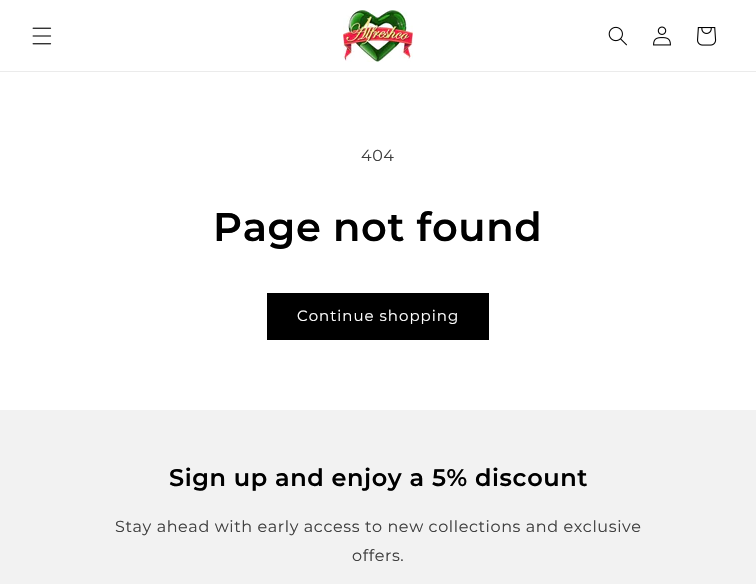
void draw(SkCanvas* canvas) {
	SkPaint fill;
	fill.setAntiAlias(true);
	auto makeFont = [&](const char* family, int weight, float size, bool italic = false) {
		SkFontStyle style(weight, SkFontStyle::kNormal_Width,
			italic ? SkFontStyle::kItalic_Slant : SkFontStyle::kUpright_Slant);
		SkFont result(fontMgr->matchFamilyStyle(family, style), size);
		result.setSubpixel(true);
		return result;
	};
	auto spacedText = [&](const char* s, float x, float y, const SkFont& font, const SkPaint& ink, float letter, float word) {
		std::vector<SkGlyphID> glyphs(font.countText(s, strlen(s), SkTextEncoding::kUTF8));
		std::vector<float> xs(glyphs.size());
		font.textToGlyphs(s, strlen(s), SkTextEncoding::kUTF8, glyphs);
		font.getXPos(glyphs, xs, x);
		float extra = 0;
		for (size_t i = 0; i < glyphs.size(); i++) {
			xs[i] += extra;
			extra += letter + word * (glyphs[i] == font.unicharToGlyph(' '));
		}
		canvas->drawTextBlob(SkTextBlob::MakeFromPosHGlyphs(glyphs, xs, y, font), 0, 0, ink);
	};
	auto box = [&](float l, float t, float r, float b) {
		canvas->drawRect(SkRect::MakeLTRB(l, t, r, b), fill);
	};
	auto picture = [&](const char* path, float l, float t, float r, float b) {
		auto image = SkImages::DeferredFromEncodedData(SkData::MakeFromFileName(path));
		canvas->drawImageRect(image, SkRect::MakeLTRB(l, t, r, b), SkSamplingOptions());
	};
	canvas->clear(0xFFFFFFFF);
	fill.setColor(0xFFEBEBEB);
	box(0, 71, 756, 72);
	picture("image0.png", 32, 27, 52, 45);
	picture("image1.png", 343, 10, 413, 62);
	picture("image2.png", 608, 26, 627, 46);
	picture("image3.png", 653, 26, 671, 46);
	picture("image4.png", 697, 27, 717, 46);
	fill.setColor(0xFF000000);
	box(267, 293, 489, 340);
	fill.setColor(0xFFF2F2F2);
	box(0, 410, 756, 584);
	auto font1 = makeFont("Montserrat", 400, 16);
	fill.setColor(0xFF404040);
	spacedText("404", 361, 161, font1, fill, 0.6f, 0);
	auto font2 = makeFont("Montserrat", 600, 40);
	fill.setColor(0xFF000000);
	spacedText("Page not found", 213, 241, font2, fill, 0.6f, 0);
	auto font3 = makeFont("Montserrat", 400, 15);
	fill.setColor(0xFFFFFFFF);
	spacedText("Continue shopping", 297, 321, font3, fill, 1, 0);
	auto font4 = makeFont("Montserrat", 600, 24);
	fill.setColor(0xFF000000);
	spacedText("Sign up and enjoy a 5% discount", 169, 486, font4, fill, 0.6f, 0);
	fill.setColor(0xFF404040);
	spacedText("Stay ahead with early access to new collections and exclusive", 115, 532, font1, fill, 0.6f, 0);
	spacedText("offers.", 352, 561, font1, fill, 0.6f, 0);
}
